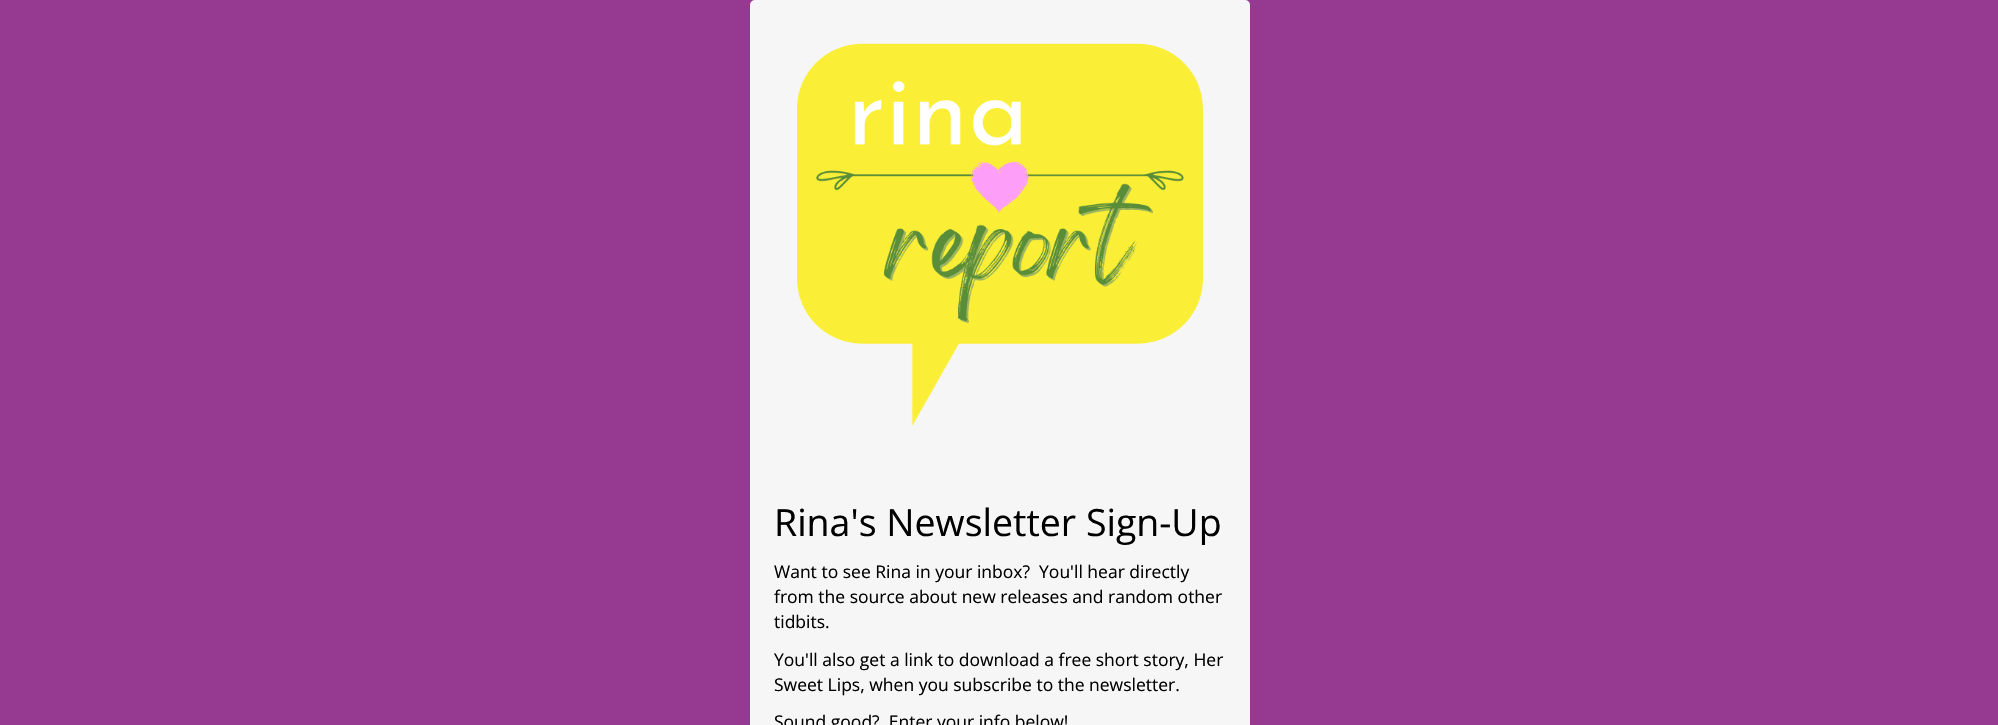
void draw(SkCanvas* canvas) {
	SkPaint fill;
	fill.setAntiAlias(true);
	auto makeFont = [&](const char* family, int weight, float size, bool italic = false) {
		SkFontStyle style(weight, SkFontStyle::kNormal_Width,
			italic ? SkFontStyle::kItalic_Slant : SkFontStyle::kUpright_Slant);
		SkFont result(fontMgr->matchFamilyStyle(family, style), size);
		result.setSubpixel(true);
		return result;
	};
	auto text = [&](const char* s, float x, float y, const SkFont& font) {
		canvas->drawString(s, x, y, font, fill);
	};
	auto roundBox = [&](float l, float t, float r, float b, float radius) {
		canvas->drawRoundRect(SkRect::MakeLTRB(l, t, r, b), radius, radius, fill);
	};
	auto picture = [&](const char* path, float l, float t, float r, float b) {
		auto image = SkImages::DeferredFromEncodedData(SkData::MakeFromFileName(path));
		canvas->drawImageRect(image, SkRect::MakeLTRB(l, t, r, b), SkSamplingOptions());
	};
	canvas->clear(0xFF953A90);
	fill.setColor(0xFFF6F6F6);
	roundBox(750, 0, 1250, 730, 5);
	picture("image0.png", 797, 43, 1203, 426);
	auto font1 = makeFont("Open Sans", 400, 37.5f);
	fill.setColor(0xFF000000);
	text("Rina's Newsletter Sign-Up", 774, 536, font1);
	auto font2 = makeFont("Open Sans", 400, 17.5f);
	text("Want to see Rina in your inbox?  You'll hear directly", 774, 578, font2);
	text("from the source about new releases and random other", 774, 603, font2);
	text("tidbits.", 774, 628, font2);
	text("You'll also get a link to download a free short story, Her", 774, 666, font2);
	text("Sweet Lips, when you subscribe to the newsletter.", 774, 691, font2);
	text("Sound good?  Enter your info below!", 774, 728, font2);
}
